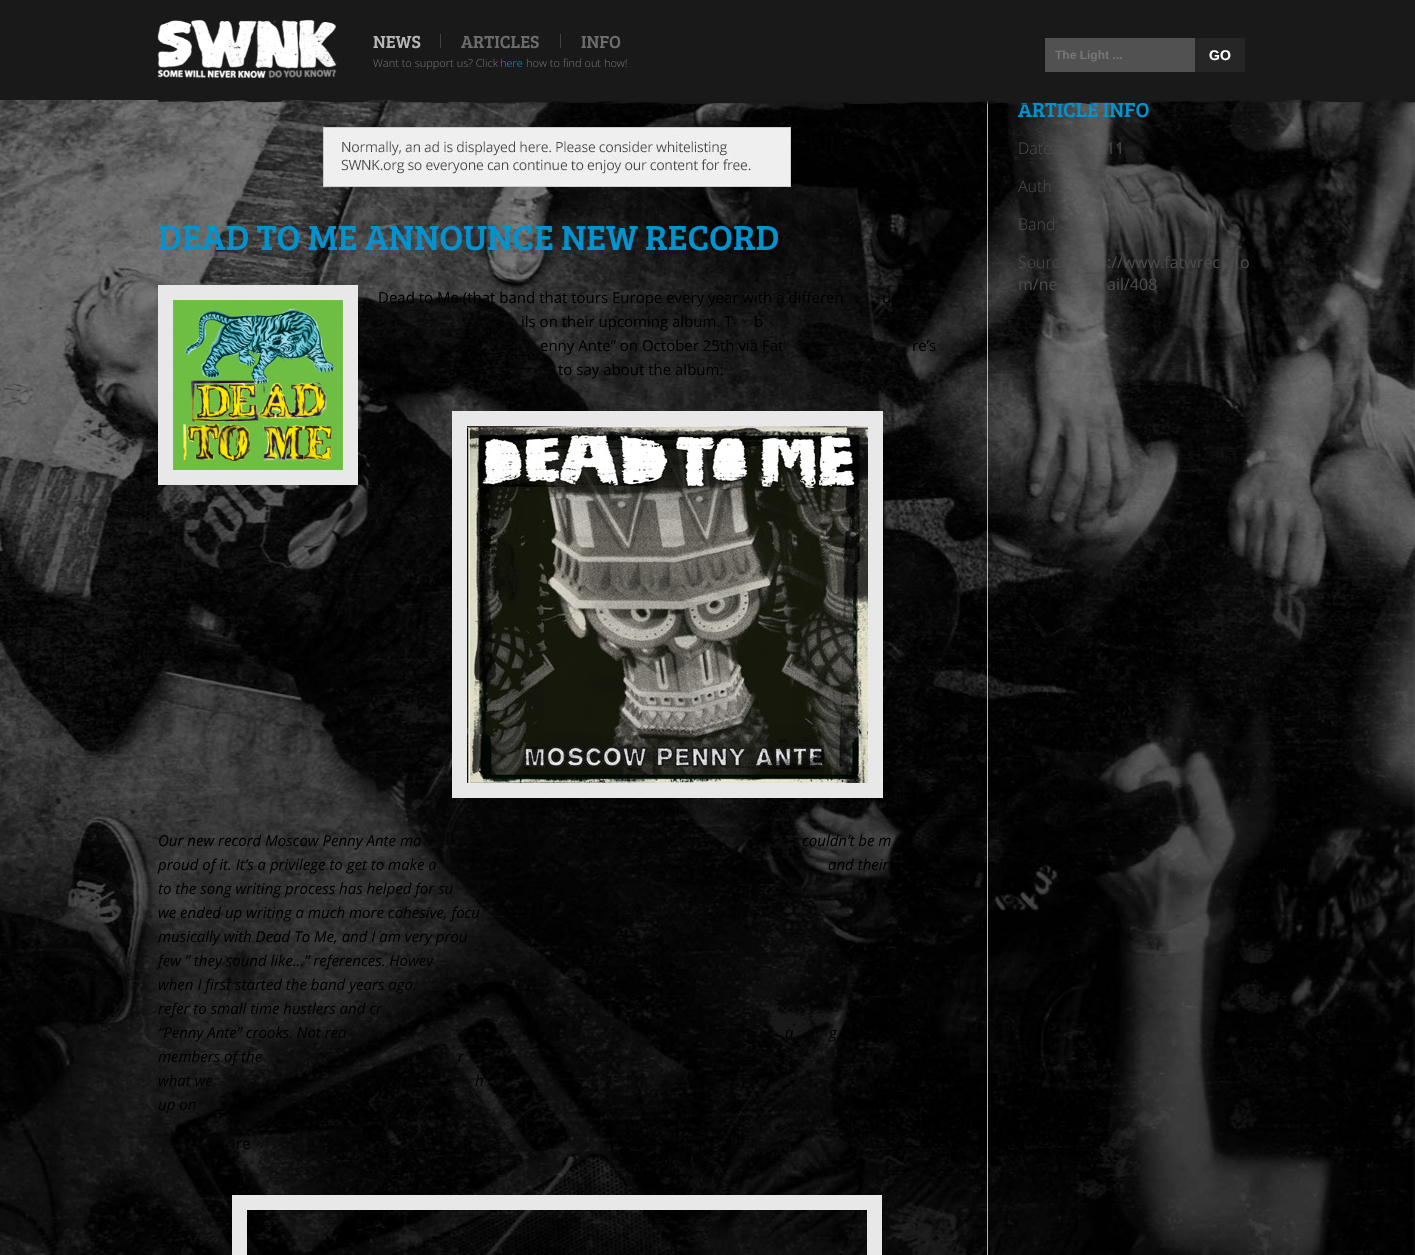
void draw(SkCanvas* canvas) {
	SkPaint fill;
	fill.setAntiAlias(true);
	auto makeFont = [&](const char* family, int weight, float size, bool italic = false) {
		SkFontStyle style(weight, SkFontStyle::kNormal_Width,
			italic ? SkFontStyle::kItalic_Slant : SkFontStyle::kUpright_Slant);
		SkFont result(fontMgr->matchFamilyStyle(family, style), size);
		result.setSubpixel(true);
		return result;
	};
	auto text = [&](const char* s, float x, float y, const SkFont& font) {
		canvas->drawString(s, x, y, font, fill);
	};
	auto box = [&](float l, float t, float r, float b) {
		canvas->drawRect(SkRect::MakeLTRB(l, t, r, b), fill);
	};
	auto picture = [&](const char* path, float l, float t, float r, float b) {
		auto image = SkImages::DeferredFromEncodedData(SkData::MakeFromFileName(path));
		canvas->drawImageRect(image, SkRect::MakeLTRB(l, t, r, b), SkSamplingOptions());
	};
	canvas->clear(0xFFFFFFFF);
	picture("image0.png", 0, 100, 1415, 1255);
	fill.setColor(0xFFB5B5B5);
	box(987, 97, 988, 1255);
	fill.setColor(0xFF191919);
	box(0, 0, 1415, 100);
	picture("image1.png", 157, 20, 338, 78);
	fill.setColor(0xFF424242);
	box(440, 34, 441, 48);
	box(560, 34, 561, 48);
	fill.setColor(0xFF515151);
	box(1045, 38, 1195, 72);
	fill.setColor(0xFF262626);
	box(1195, 38, 1245, 72);
	picture("image3.png", 323, 127, 791, 187);
	fill.setColor(0xFFE8E8E8);
	box(158, 285, 358, 485);
	picture("image4.png", 173, 300, 343, 470);
	box(452, 411, 883, 798);
	picture("image5.png", 467, 426, 868, 783);
	fill.setStyle(SkPaint::kStroke_Style);
	fill.setStrokeWidth(15);
	canvas->drawRect(SkRect::MakeLTRB(239.5f, 1202.5f, 874.5f, 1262.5f), fill);
	auto font1 = makeFont("Bree Serif", 400, 18);
	fill.setStyle(SkPaint::kFill_Style);
	fill.setColor(0xFFB7B7B7);
	text("NEWS", 373, 48, font1);
	fill.setColor(0xFF6D6D6D);
	text("ARTICLES", 461, 48, font1);
	text("INFO", 581, 48, font1);
	auto font2 = makeFont("Liberation Sans", 700, 12);
	fill.setColor(0xFF757575);
	text("The Light ...", 1055, 59, font2);
	auto font3 = makeFont("Liberation Sans", 700, 14);
	fill.setColor(0xFFFFFFFF);
	text("GO", 1209, 60, font3);
	auto font4 = makeFont("Open Sans", 300, 11);
	fill.setColor(0xFF6D6D6D);
	text("Want to support us? Click", 373, 67, font4);
	fill.setColor(0xFF0193CF);
	text("here", 500, 67, font4);
	fill.setColor(0xFF6D6D6D);
	text("how to find out how!", 526, 67, font4);
	auto font5 = makeFont("Bree Serif", 400, 21);
	fill.setColor(0xFF0193CF);
	text("ARTICLE INFO", 1018, 117, font5);
	picture("image2.png", 158, 100, 1415, 105);
	auto font6 = makeFont("Open Sans", 300, 16);
	fill.setColor(0xFF494949);
	text("Date", 1018, 154, font6);
	auto font7 = makeFont("Open Sans", 400, 16);
	text("11", 1106, 154, font7);
	text("Auth", 1018, 192, font6);
	text("Band:", 1018, 230, font6);
	text("Sourc", 1018, 268, font6);
	text("://www.fatwrec", 1107, 268, font7);
	text("o", 1240, 268, font7);
	text("m/ne", 1018, 290, font7);
	text("ail/408", 1107, 290, font7);
	auto font8 = makeFont("Bree Serif", 400, 36);
	fill.setColor(0xFF0193CF);
	text("DEAD TO ME ANNOUNCE NEW RECORD", 158, 250, font8);
	auto font9 = makeFont("Open Sans", 400, 15);
	fill.setColor(0xFF000000);
	text("Dead to Me (that band that tours Europe every year with a differen", 378, 303, font9);
	text("u", 882, 303, font9);
	text("ils on their upcoming album. T", 521, 327, font9);
	text("b", 754, 327, font9);
	text("enny Ante” on October 25th via Fat", 540, 351, font9);
	text("re’s", 912, 351, font9);
	text("to say about the album:", 558, 375, font9);
	auto font10 = makeFont("Open Sans", 400, 15, true);
	text("Our new record Moscow Penny Ante ma", 158, 846, font10);
	text("couldn’t be m", 802, 846, font10);
	text("proud of it. It’s a privilege to get to make a", 158, 870, font10);
	text("and their", 828, 870, font10);
	text("to the song writing process has helped for su", 158, 894, font10);
	text(".", 466, 894, font10);
	text("we ended up writing a much more cohesive, focu", 158, 918, font10);
	text("musically with Dead To Me, and I am very prou", 158, 942, font10);
	text("few ” they sound like…” references. Howev", 158, 966, font10);
	text("when I first started the band years ago.", 158, 990, font10);
	text("refer to small time hustlers and cr", 158, 1014, font10);
	text("“Penny Ante” crooks. Not rea", 158, 1038, font10);
	text("a", 785, 1038, font10);
	text("g", 829, 1038, font10);
	text("members of the", 158, 1062, font10);
	text("r", 458, 1062, font10);
	text("what we", 158, 1086, font10);
	text("h", 475, 1086, font10);
	text("up on", 158, 1110, font10);
	text("re", 236, 1149, font9);
}
